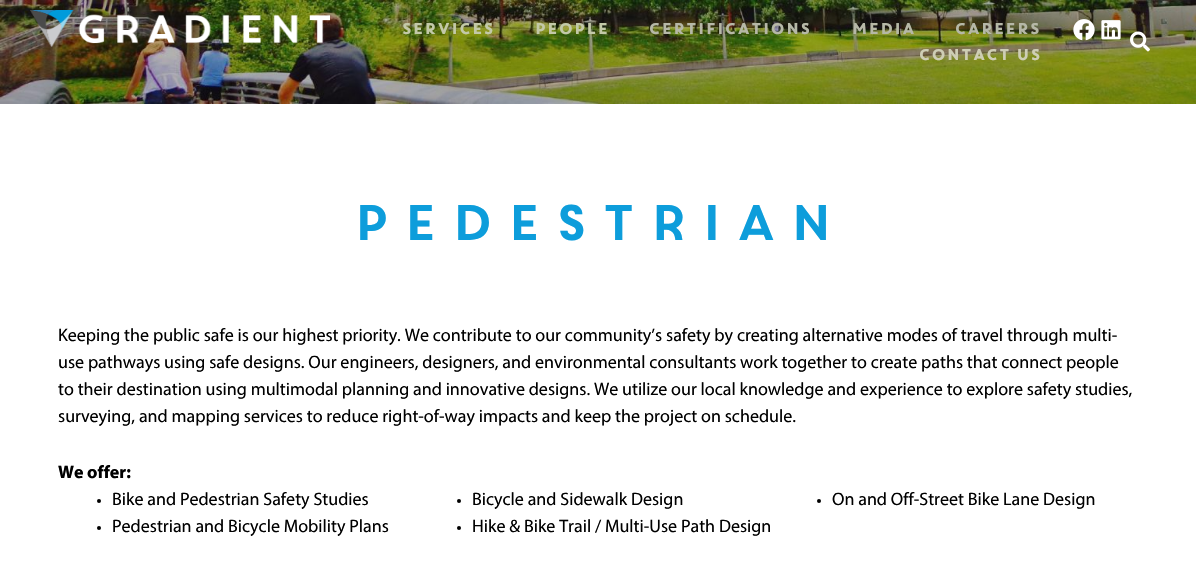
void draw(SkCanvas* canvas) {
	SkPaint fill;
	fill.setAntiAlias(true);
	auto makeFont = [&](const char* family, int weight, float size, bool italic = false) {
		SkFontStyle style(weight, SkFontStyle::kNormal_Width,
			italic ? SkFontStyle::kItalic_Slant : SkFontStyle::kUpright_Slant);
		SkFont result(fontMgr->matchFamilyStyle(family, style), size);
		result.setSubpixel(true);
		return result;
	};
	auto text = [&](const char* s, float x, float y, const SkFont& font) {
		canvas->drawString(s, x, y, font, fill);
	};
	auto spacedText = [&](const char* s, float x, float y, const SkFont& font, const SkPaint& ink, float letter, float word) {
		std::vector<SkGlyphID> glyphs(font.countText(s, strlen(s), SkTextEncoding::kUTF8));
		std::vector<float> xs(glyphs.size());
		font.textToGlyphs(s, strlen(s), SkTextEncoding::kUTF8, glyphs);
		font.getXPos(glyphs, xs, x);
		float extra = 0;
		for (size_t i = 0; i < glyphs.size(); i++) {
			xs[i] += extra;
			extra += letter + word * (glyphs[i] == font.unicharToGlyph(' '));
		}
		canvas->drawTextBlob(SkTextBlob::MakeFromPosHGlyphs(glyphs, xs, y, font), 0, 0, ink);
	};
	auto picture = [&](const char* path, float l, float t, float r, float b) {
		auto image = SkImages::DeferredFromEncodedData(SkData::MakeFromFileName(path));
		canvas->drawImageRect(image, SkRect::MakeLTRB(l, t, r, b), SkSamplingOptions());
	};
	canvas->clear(0xFFFFFFFF);
	picture("image4.png", 0, 0, 1196, 104);
	picture("image0.png", 30, 10, 330, 47);
	picture("image1.png", 1073, 19, 1095, 41);
	picture("image2.png", 1101, 20, 1121, 40);
	picture("image3.png", 1130, 31, 1150, 52);
	fill.setColor(0xFF000000);
	canvas->drawCircle(99, 501, 2, fill);
	canvas->drawCircle(99, 528, 2, fill);
	canvas->drawCircle(459, 501, 2, fill);
	canvas->drawCircle(459, 528, 2, fill);
	canvas->drawCircle(819, 501, 2, fill);
	auto font1 = makeFont("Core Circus", 700, 15);
	fill.setColor(0xFFC3C9A8);
	text("SERVICES", 401, 34, font1);
	text("PEOPLE", 534, 34, font1);
	fill.setColor(0xFFB6B8A7);
	text("CERTIFICATIONS", 648, 34, font1);
	text("MEDIA", 851, 34, font1);
	text("CAREERS", 954, 34, font1);
	fill.setColor(0xFFCECEB5);
	text("CONTACT US", 918, 60, font1);
	auto font2 = makeFont("Core Circus", 400, 50);
	fill.setColor(0xFF0D9DDB);
	spacedText("Pedestrian", 351, 240, font2, fill, 9, 0);
	auto font3 = makeFont("Myriad", 400, 18);
	fill.setColor(0xFF000000);
	text("Keeping the public safe is our highest priority. We contribute to our community’s safety by creating alternative modes of travel through multi-", 58, 341, font3);
	text("use pathways using safe designs. Our engineers, designers, and environmental consultants work together to create paths that connect people", 58, 368, font3);
	text("to their destination using multimodal planning and innovative designs. We utilize our local knowledge and experience to explore safety studies,", 58, 395, font3);
	text("surveying, and mapping services to reduce right-of-way impacts and keep the project on schedule.", 58, 422, font3);
	auto font4 = makeFont("Myriad", 700, 18);
	text("We offer:", 58, 478, font4);
	text("Bike and Pedestrian Safety Studies", 112, 505, font3);
	text("Pedestrian and Bicycle Mobility Plans", 112, 532, font3);
	text("Bicycle and Sidewalk Design", 472, 505, font3);
	text("Hike & Bike Trail / Multi-Use Path Design", 472, 532, font3);
	text("On and Off-Street Bike Lane Design", 832, 505, font3);
}
